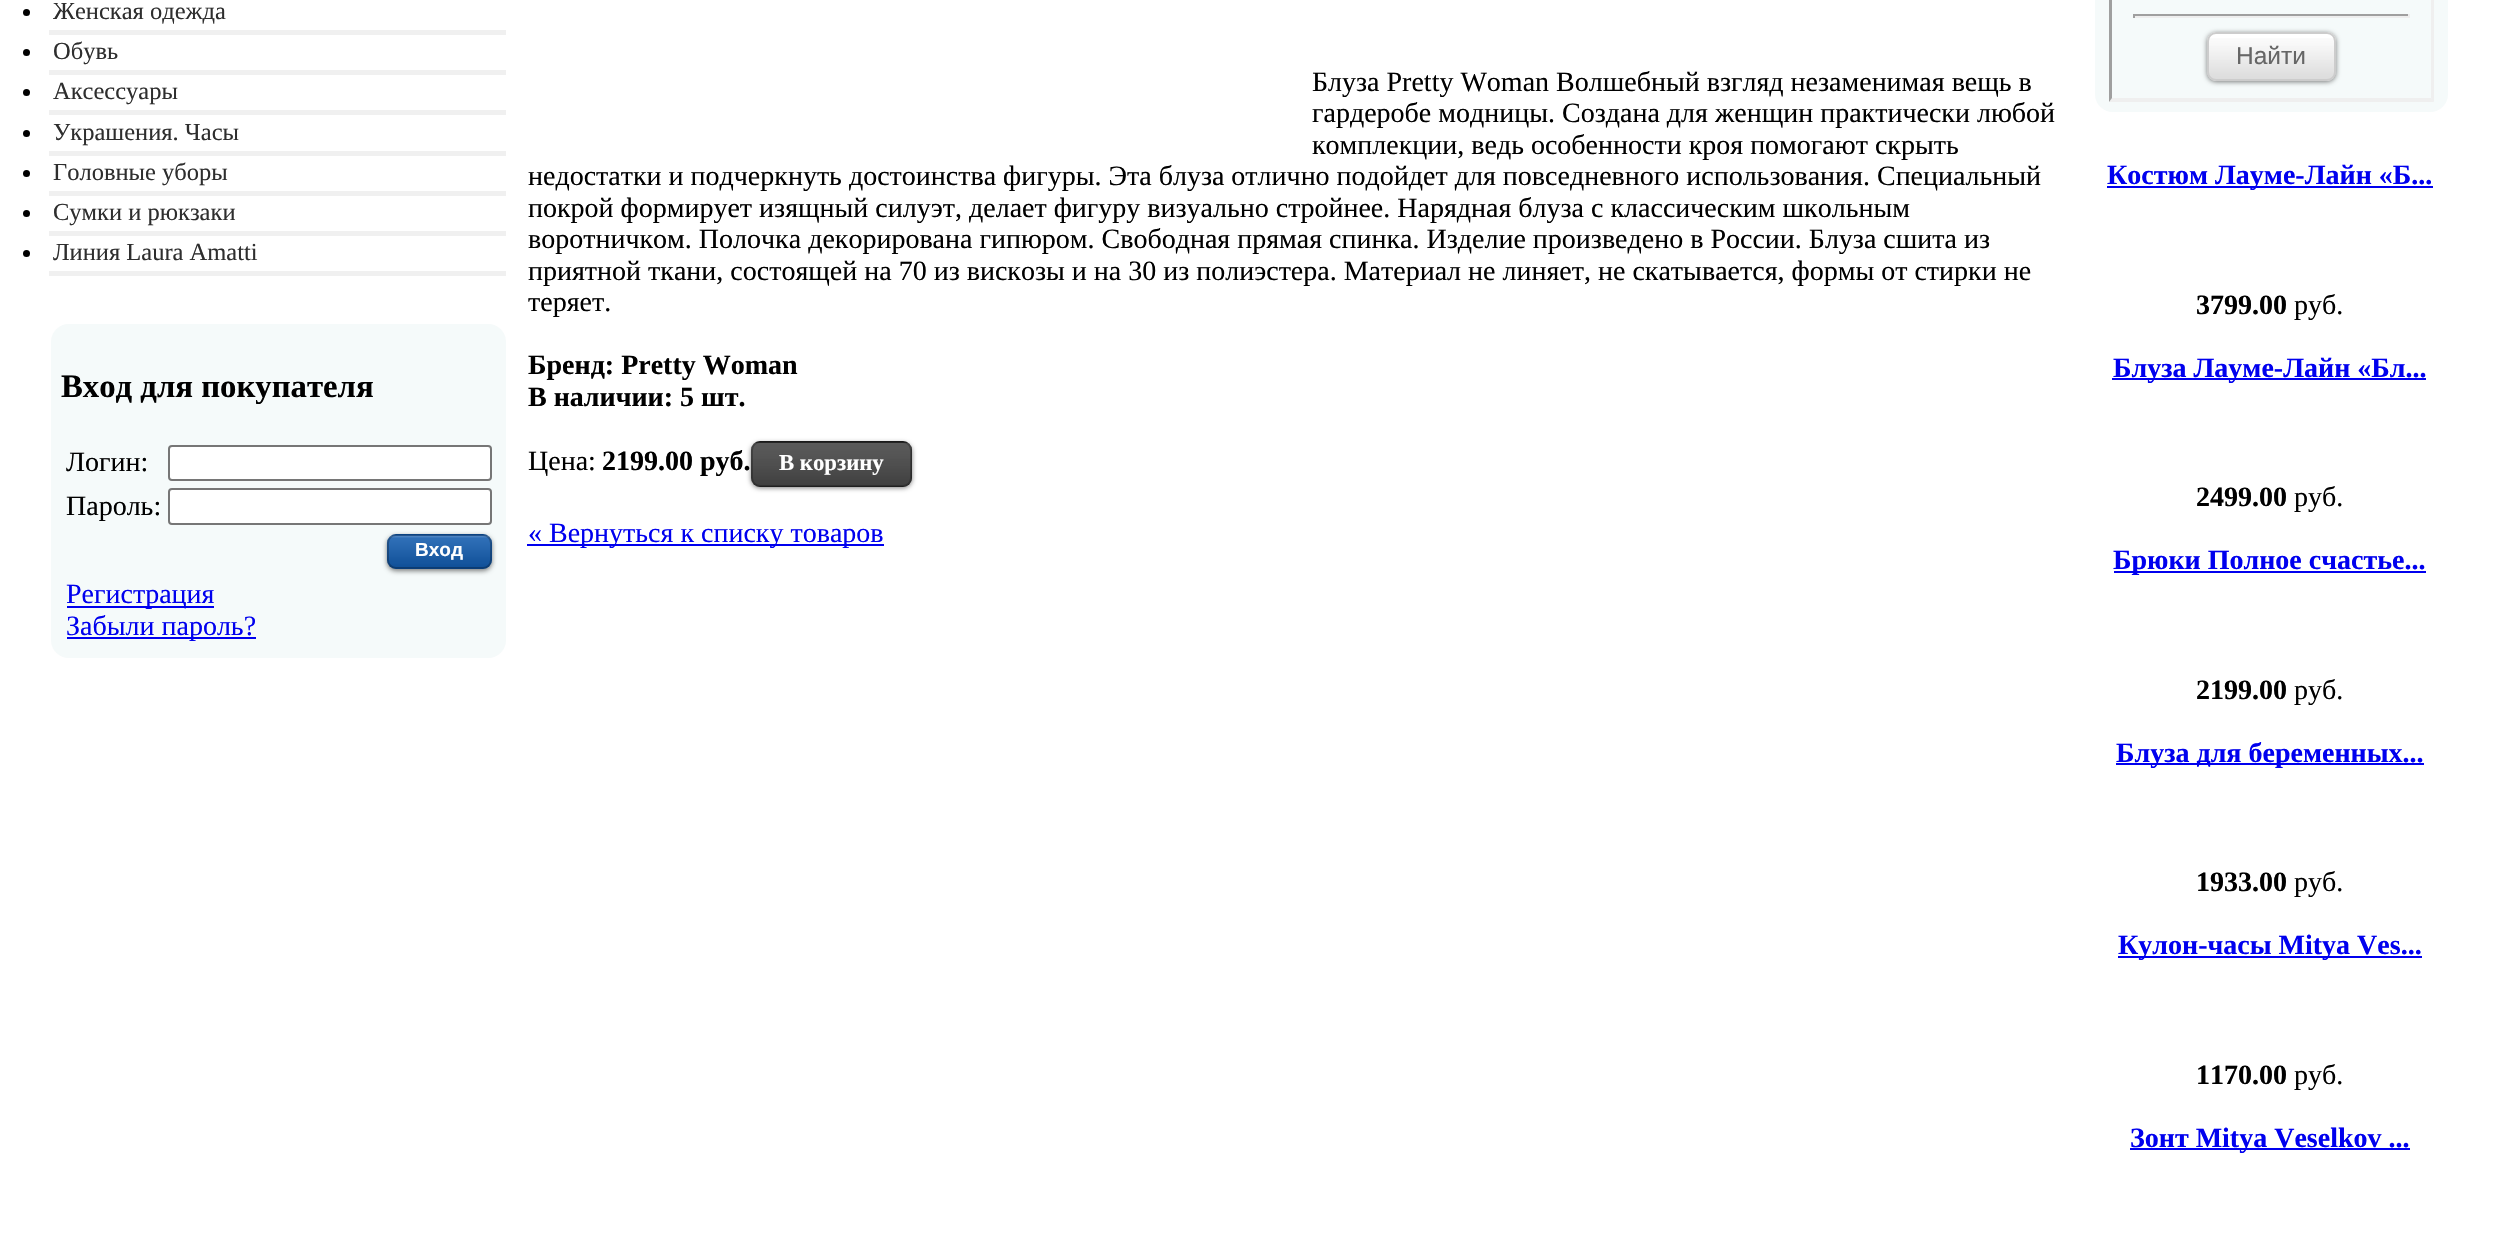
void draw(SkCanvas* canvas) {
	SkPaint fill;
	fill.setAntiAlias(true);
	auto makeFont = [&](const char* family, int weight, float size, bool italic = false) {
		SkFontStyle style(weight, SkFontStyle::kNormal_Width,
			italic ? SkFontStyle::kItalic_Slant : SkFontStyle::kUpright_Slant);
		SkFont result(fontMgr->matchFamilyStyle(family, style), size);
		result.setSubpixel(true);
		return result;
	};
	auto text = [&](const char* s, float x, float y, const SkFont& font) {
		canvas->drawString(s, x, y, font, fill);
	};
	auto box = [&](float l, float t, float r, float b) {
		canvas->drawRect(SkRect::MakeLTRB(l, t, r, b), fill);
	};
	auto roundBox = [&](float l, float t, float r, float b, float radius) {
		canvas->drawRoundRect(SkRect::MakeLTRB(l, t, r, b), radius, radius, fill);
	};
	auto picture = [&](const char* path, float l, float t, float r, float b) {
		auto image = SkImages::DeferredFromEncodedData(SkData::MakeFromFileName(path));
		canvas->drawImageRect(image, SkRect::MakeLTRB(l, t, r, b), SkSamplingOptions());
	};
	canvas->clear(0xFFFFFFFF);
	fill.setColor(0xFFF0F0F0);
	box(49, 30, 506, 35);
	fill.setColor(0xFF000000);
	canvas->drawCircle(26.5f, 12.5f, 3.5f, fill);
	fill.setColor(0xFFF0F0F0);
	box(49, 70, 506, 75);
	fill.setColor(0xFF000000);
	canvas->drawCircle(26.5f, 52.5f, 3.5f, fill);
	fill.setColor(0xFFF0F0F0);
	box(49, 110, 506, 115);
	fill.setColor(0xFF000000);
	canvas->drawCircle(26.5f, 92.5f, 3.5f, fill);
	fill.setColor(0xFFF0F0F0);
	box(49, 151, 506, 156);
	fill.setColor(0xFF000000);
	canvas->drawCircle(26.5f, 133.5f, 3.5f, fill);
	fill.setColor(0xFFF0F0F0);
	box(49, 191, 506, 196);
	fill.setColor(0xFF000000);
	canvas->drawCircle(26.5f, 173.5f, 3.5f, fill);
	fill.setColor(0xFFF0F0F0);
	box(49, 231, 506, 236);
	fill.setColor(0xFF000000);
	canvas->drawCircle(26.5f, 213.5f, 3.5f, fill);
	fill.setColor(0xFFF0F0F0);
	box(49, 271, 506, 276);
	fill.setColor(0xFF000000);
	canvas->drawCircle(26.5f, 253.5f, 3.5f, fill);
	fill.setColor(0xFFF5FAFA);
	roundBox(51, 324, 506, 658, 18);
	fill.setColor(0xFFFFFFFF);
	canvas->drawRoundRect(SkRect::MakeLTRB(169, 446, 491, 480), 3, 3, fill);
	fill.setStyle(SkPaint::kStroke_Style);
	fill.setStrokeWidth(2);
	fill.setColor(0xFF767676);
	canvas->drawRoundRect(SkRect::MakeLTRB(169, 446, 491, 480), 3, 3, fill);
	fill.setStyle(SkPaint::kFill_Style);
	fill.setColor(0xFFFFFFFF);
	canvas->drawRoundRect(SkRect::MakeLTRB(169, 489, 491, 524), 3, 3, fill);
	fill.setStyle(SkPaint::kStroke_Style);
	fill.setColor(0xFF767676);
	canvas->drawRoundRect(SkRect::MakeLTRB(169, 489, 491, 524), 3, 3, fill);
	fill.setStyle(SkPaint::kFill_Style);
	fill.setColor(0x80000000);
	fill.setMaskFilter(SkMaskFilter::MakeBlur(kNormal_SkBlurStyle, 2.5f));
	canvas->drawRoundRect(SkRect::MakeLTRB(387, 536, 492, 571), 9, 9, fill);
	fill.setMaskFilter(nullptr);
	fill.setColor(0xFF0E59AE);
	roundBox(387, 534, 492, 569, 9);
	picture("image0.png", 387, 535, 492, 569);
	fill.setStyle(SkPaint::kStroke_Style);
	fill.setColor(0x40000000);
	canvas->drawRoundRect(SkRect::MakeLTRB(388, 535, 491, 568), 8, 8, fill);
	fill.setStyle(SkPaint::kFill_Style);
	fill.setColor(0xFF0000EE);
	box(67, 606, 214, 608);
	box(67, 637, 256, 639);
	fill.setColor(0x80000000);
	fill.setMaskFilter(SkMaskFilter::MakeBlur(kNormal_SkBlurStyle, 2.5f));
	canvas->drawRoundRect(SkRect::MakeLTRB(751, 443, 912, 488), 9, 9, fill);
	fill.setMaskFilter(nullptr);
	fill.setColor(0xFF222222);
	roundBox(751, 441, 912, 487, 9);
	picture("image1.png", 751, 442, 912, 487);
	fill.setStyle(SkPaint::kStroke_Style);
	fill.setColor(0x40000000);
	canvas->drawRoundRect(SkRect::MakeLTRB(752, 442, 911, 486), 8, 8, fill);
	fill.setStyle(SkPaint::kFill_Style);
	fill.setColor(0xFF0000EE);
	box(527, 544, 884, 546);
	fill.setColor(0xFFF5FAFA);
	roundBox(2095, -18, 2448, 112, 18);
	fill.setColor(0xFFEFEFEF);
	canvas->drawPath(SkPathBuilder().moveTo(2434, -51).lineTo(2434, 102).lineTo(2431, 98).lineTo(2431, -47).close().detach(), fill);
	canvas->drawPath(SkPathBuilder().moveTo(2434, 102).lineTo(2109, 102).lineTo(2112, 98).lineTo(2431, 98).close().detach(), fill);
	fill.setColor(0xFF9F9F9F);
	canvas->drawPath(SkPathBuilder().moveTo(2109, 102).lineTo(2109, -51).lineTo(2112, -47).lineTo(2112, 98).close().detach(), fill);
	box(2133, 14, 2410, 16);
	fill.setColor(0xFFEEEEEE);
	box(2408, 14, 2410, 18);
	box(2133, 16, 2410, 18);
	fill.setColor(0xFF9F9F9F);
	box(2133, 14, 2135, 18);
	fill.setColor(0x80000000);
	fill.setMaskFilter(SkMaskFilter::MakeBlur(kNormal_SkBlurStyle, 2.5f));
	canvas->drawRoundRect(SkRect::MakeLTRB(2207, 33, 2336, 82), 9, 9, fill);
	fill.setMaskFilter(nullptr);
	fill.setColor(0xFFFFFFFF);
	roundBox(2207, 32, 2336, 81, 9);
	picture("image2.png", 2207, 38, 2336, 81);
	fill.setStyle(SkPaint::kStroke_Style);
	fill.setColor(0xFFCCCCCC);
	canvas->drawRoundRect(SkRect::MakeLTRB(2208, 33, 2335, 80), 8, 8, fill);
	fill.setStyle(SkPaint::kFill_Style);
	fill.setColor(0xFF0000EE);
	box(2107, 186, 2433, 188);
	box(2112, 378, 2426, 380);
	box(2114, 571, 2426, 573);
	box(2116, 763, 2424, 765);
	box(2118, 956, 2422, 958);
	box(2130, 1148, 2410, 1150);
	auto font1 = makeFont("Liberation Serif", 400, 24.5f);
	fill.setColor(0xFF2E2E2E);
	text("Женская одежда", 53, 19, font1);
	text("Обувь", 53, 59, font1);
	text("Аксессуары", 53, 99, font1);
	text("Украшения. Часы", 53, 140, font1);
	text("Головные уборы", 53, 180, font1);
	text("Сумки и рюкзаки", 53, 220, font1);
	text("Линия Laura Amatti", 53, 260, font1);
	auto font2 = makeFont("Liberation Serif", 700, 32.75f);
	fill.setColor(0xFF000000);
	text("Вход для покупателя", 61, 397, font2);
	auto font3 = makeFont("Liberation Serif", 400, 28);
	text("Логин:", 66, 471, font3);
	text("Пароль:", 66, 515, font3);
	auto font4 = makeFont("Liberation Sans", 700, 19);
	fill.setColor(0xFFFFFFFF);
	text("Вход", 415, 556, font4);
	fill.setColor(0xFF0000EE);
	text("Регистрация", 66, 603, font3);
	text("Забыли пароль?", 66, 635, font3);
	fill.setColor(0xFF000000);
	text("Блуза Pretty Woman Волшебный взгляд незаменимая вещь в", 1312, 91, font3);
	text("гардеробе модницы. Создана для женщин практически любой", 1312, 122, font3);
	text("комплекции, ведь особенности кроя помогают скрыть", 1312, 154, font3);
	text("недостатки и подчеркнуть достоинства фигуры. Эта блуза отлично подойдет для повседневного использования. Специальный", 528, 185, font3);
	text("покрой формирует изящный силуэт, делает фигуру визуально стройнее. Нарядная блуза с классическим школьным", 528, 217, font3);
	text("воротничком. Полочка декорирована гипюром. Свободная прямая спинка. Изделие произведено в России. Блуза сшита из", 528, 248, font3);
	text("приятной ткани, состоящей на 70 из вискозы и на 30 из полиэстера. Материал не линяет, не скатывается, формы от стирки не", 528, 280, font3);
	text("теряет.", 528, 311, font3);
	auto font5 = makeFont("Liberation Serif", 700, 28);
	text("Бренд: Pretty Woman", 528, 374, font5);
	text("В наличии: 5 шт.", 528, 406, font5);
	text("Цена:", 528, 470, font3);
	text("2199.00 руб.", 602, 470, font5);
	auto font6 = makeFont("Liberation Serif", 700, 22.75f);
	fill.setColor(0xFFFFFFFF);
	text("В корзину", 779, 470, font6);
	fill.setColor(0xFF0000EE);
	text("« Вернуться к списку товаров", 528, 542, font3);
	auto font7 = makeFont("Liberation Sans", 400, 24.5f);
	fill.setColor(0xFF666666);
	text("Найти", 2236, 64, font7);
	fill.setColor(0xFF0000EE);
	text("Костюм Лауме-Лайн «Б...", 2107, 184, font5);
	fill.setColor(0xFF000000);
	text("3799.00", 2196, 314, font5);
	text("руб.", 2294, 314, font3);
	fill.setColor(0xFF0000EE);
	text("Блуза Лауме-Лайн «Бл...", 2113, 377, font5);
	fill.setColor(0xFF000000);
	text("2499.00", 2196, 506, font5);
	text("руб.", 2294, 506, font3);
	fill.setColor(0xFF0000EE);
	text("Брюки Полное счастье...", 2113, 569, font5);
	fill.setColor(0xFF000000);
	text("2199.00", 2196, 699, font5);
	text("руб.", 2294, 699, font3);
	fill.setColor(0xFF0000EE);
	text("Блуза для беременных...", 2116, 762, font5);
	fill.setColor(0xFF000000);
	text("1933.00", 2196, 891, font5);
	text("руб.", 2294, 891, font3);
	fill.setColor(0xFF0000EE);
	text("Кулон-часы Mitya Ves...", 2118, 954, font5);
	fill.setColor(0xFF000000);
	text("1170.00", 2196, 1084, font5);
	text("руб.", 2294, 1084, font3);
	fill.setColor(0xFF0000EE);
	text("Зонт Mitya Veselkov ...", 2130, 1147, font5);
}
